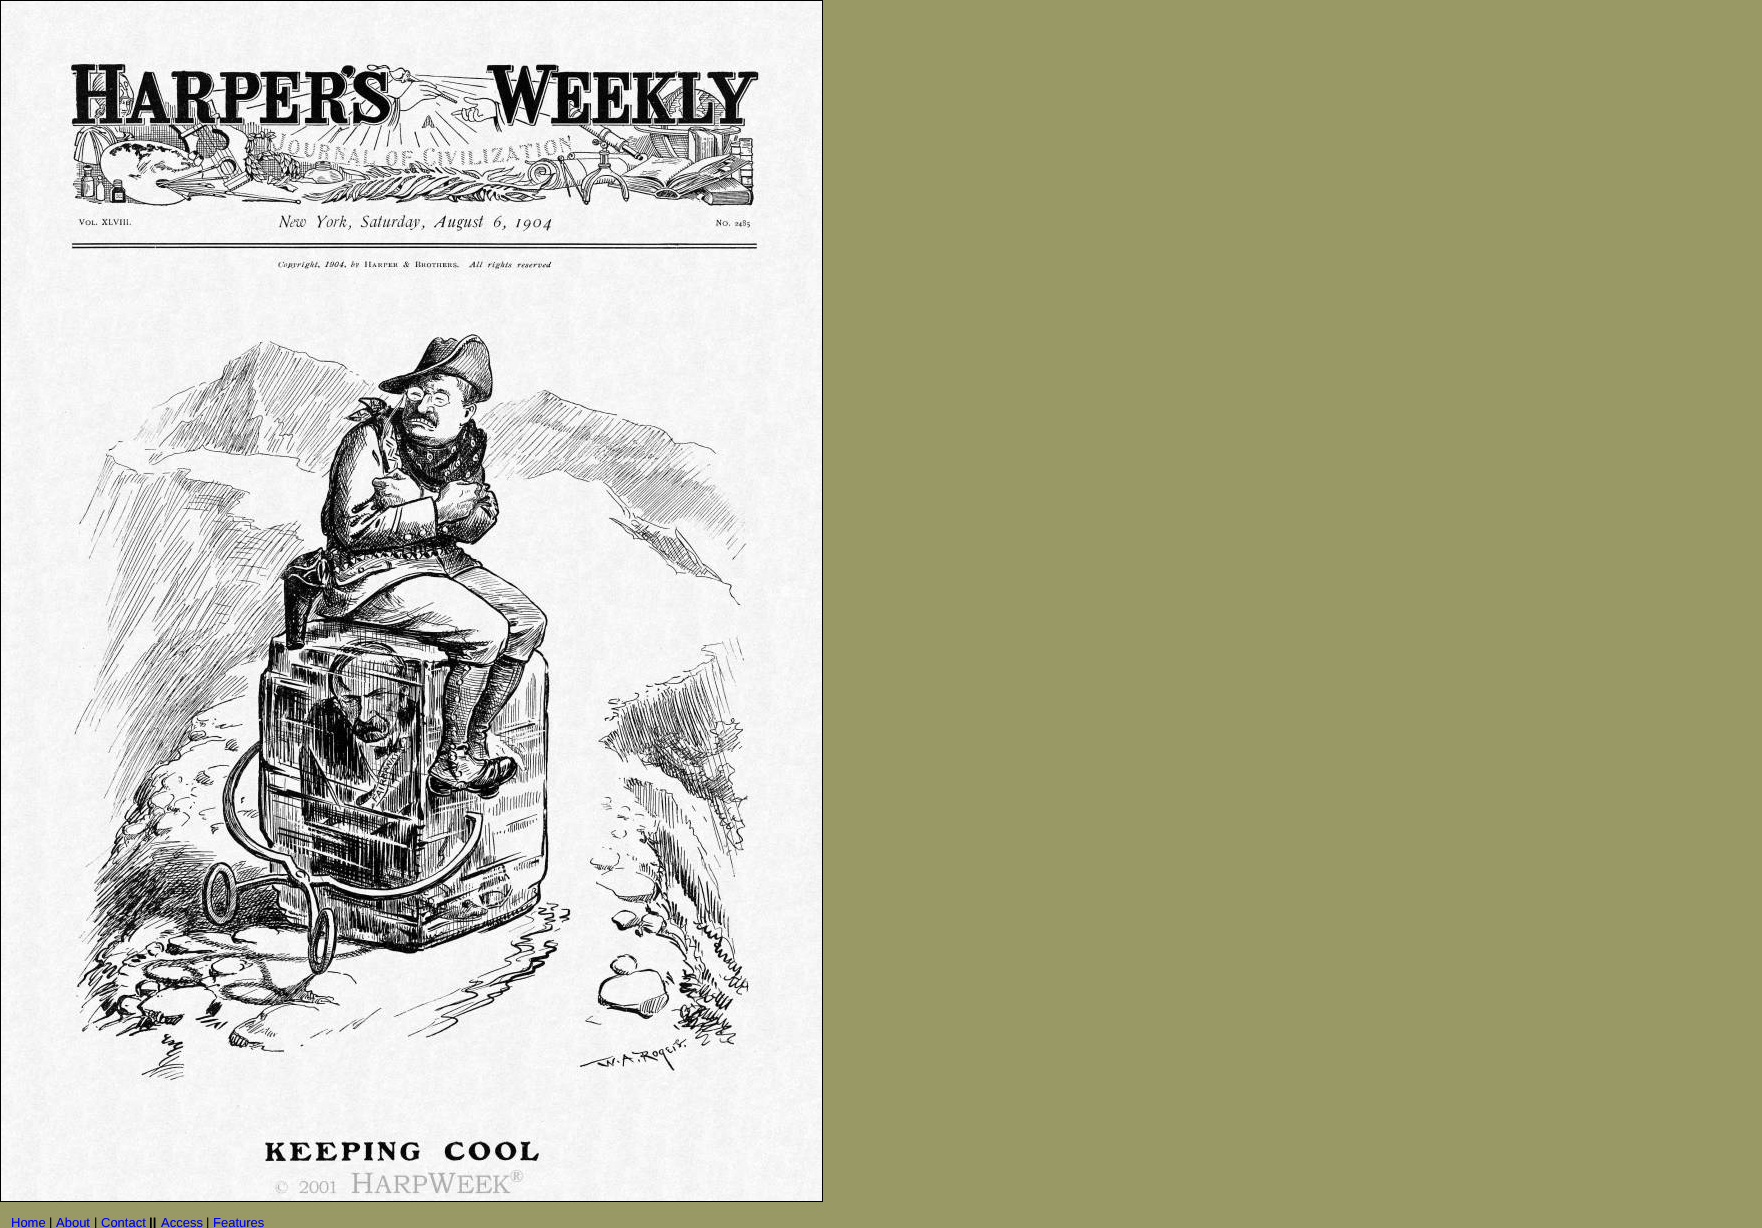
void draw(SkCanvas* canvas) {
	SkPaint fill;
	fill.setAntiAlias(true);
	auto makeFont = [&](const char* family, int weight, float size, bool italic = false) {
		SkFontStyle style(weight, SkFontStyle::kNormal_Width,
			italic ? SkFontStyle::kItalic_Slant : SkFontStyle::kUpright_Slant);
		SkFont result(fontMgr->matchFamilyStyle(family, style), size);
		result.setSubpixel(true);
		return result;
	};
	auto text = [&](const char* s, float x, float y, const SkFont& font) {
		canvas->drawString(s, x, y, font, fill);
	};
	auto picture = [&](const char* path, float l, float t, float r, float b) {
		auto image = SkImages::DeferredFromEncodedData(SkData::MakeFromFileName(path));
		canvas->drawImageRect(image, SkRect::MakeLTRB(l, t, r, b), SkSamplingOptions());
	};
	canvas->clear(0xFF999966);
	fill.setStyle(SkPaint::kStroke_Style);
	fill.setStrokeWidth(1);
	fill.setColor(0xFF000000);
	canvas->drawRect(SkRect::MakeLTRB(0.5f, 0.5f, 822.5f, 1201.5f), fill);
	picture("image0.png", 1, 1, 822, 1201);
	auto font1 = makeFont("Liberation Sans", 400, 13);
	fill.setStyle(SkPaint::kFill_Style);
	fill.setColor(0xFF0000EE);
	text("Home", 11, 1227, font1);
	fill.setColor(0xFF000000);
	text("|", 49, 1227, font1);
	fill.setColor(0xFF0000EE);
	text("About", 56, 1227, font1);
	fill.setColor(0xFF000000);
	text("|", 94, 1227, font1);
	fill.setColor(0xFF0000EE);
	text("Contact", 101, 1227, font1);
	auto font2 = makeFont("Liberation Sans", 700, 13);
	fill.setColor(0xFF000000);
	text("||", 149, 1227, font2);
	fill.setColor(0xFF0000EE);
	text("Access", 161, 1227, font1);
	fill.setColor(0xFF000000);
	text("|", 206, 1227, font1);
	fill.setColor(0xFF0000EE);
	text("Features", 213, 1227, font1);
}
